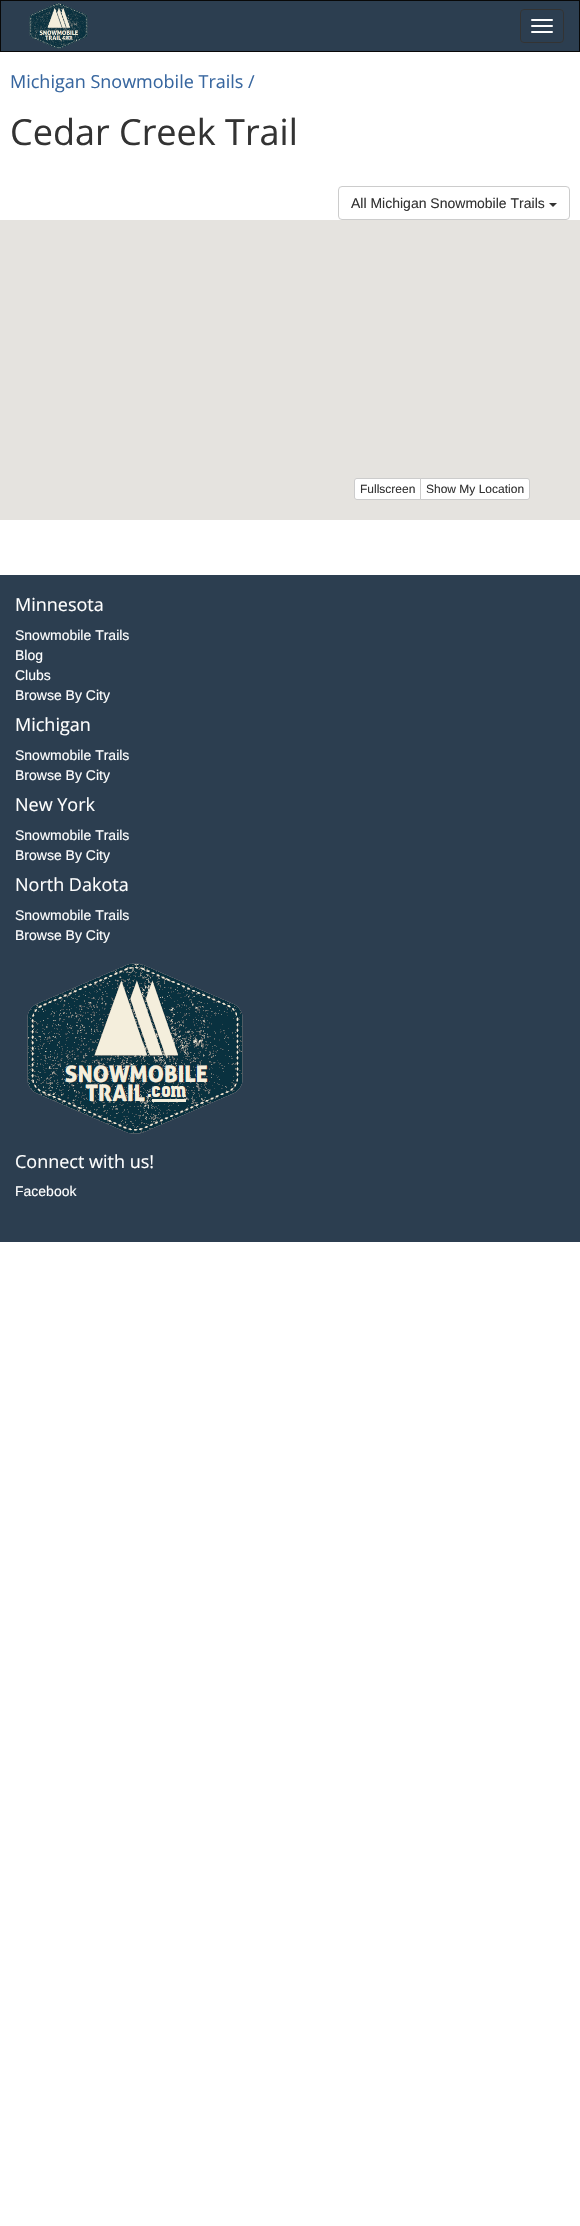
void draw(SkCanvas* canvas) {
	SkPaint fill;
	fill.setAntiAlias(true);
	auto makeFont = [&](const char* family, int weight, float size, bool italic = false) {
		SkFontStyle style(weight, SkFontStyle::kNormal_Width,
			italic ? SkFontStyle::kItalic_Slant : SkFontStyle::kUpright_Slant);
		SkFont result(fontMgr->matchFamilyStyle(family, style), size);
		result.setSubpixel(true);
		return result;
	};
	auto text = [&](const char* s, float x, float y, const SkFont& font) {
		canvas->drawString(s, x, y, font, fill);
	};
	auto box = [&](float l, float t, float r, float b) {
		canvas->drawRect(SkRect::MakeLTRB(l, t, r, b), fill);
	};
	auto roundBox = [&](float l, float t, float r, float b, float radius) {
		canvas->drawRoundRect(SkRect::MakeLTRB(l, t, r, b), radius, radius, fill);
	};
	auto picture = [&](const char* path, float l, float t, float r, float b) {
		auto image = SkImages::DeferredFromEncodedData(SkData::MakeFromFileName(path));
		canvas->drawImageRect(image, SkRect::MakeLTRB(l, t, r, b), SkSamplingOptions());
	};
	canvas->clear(0xFFFFFFFF);
	fill.setColor(0xFF2C3E50);
	canvas->drawRect(SkRect::MakeLTRB(0.5f, 0.5f, 579.5f, 51.5f), fill);
	fill.setStyle(SkPaint::kStroke_Style);
	fill.setStrokeWidth(1);
	fill.setColor(0xFF080808);
	canvas->drawRect(SkRect::MakeLTRB(0.5f, 0.5f, 579.5f, 51.5f), fill);
	picture("image0.png", 29, 3, 88, 49);
	fill.setColor(0xFF333333);
	canvas->drawRoundRect(SkRect::MakeLTRB(520.5f, 9.5f, 563.5f, 42.5f), 3.5f, 3.5f, fill);
	fill.setStyle(SkPaint::kFill_Style);
	fill.setColor(0xFFFFFFFF);
	roundBox(531, 19, 553, 21, 1);
	roundBox(531, 25, 553, 27, 1);
	roundBox(531, 31, 553, 33, 1);
	fill.setStyle(SkPaint::kStroke_Style);
	fill.setColor(0xFFCCCCCC);
	canvas->drawRoundRect(SkRect::MakeLTRB(338.5f, 186.5f, 569.5f, 219.5f), 3.5f, 3.5f, fill);
	fill.setStyle(SkPaint::kFill_Style);
	fill.setColor(0xFF333333);
	canvas->drawPath(SkPathBuilder().moveTo(549, 203).lineTo(557, 203).lineTo(553, 207).close().detach(), fill);
	fill.setColor(0xFFE5E3DF);
	box(0, 220, 580, 520);
	fill.setColor(0xFFFFFFFF);
	canvas->drawPath(SkPathBuilder().moveTo(357, 478.5f).lineTo(420.5f, 478.5f).lineTo(420.5f, 499.5f).lineTo(357, 499.5f).cubicTo(355.5f, 499.5f, 354.5f, 498.5f, 354.5f, 497).lineTo(354.5f, 481).cubicTo(354.5f, 479.5f, 355.5f, 478.5f, 357, 478.5f).close().detach(), fill);
	fill.setStyle(SkPaint::kStroke_Style);
	fill.setColor(0xFFCCCCCC);
	canvas->drawPath(SkPathBuilder().moveTo(357, 478.5f).lineTo(420.5f, 478.5f).lineTo(420.5f, 499.5f).lineTo(357, 499.5f).cubicTo(355.5f, 499.5f, 354.5f, 498.5f, 354.5f, 497).lineTo(354.5f, 481).cubicTo(354.5f, 479.5f, 355.5f, 478.5f, 357, 478.5f).close().detach(), fill);
	fill.setStyle(SkPaint::kFill_Style);
	fill.setColor(0xFFFFFFFF);
	canvas->drawPath(SkPathBuilder().moveTo(420.5f, 478.5f).lineTo(527, 478.5f).cubicTo(528.5f, 478.5f, 529.5f, 479.5f, 529.5f, 481).lineTo(529.5f, 497).cubicTo(529.5f, 498.5f, 528.5f, 499.5f, 527, 499.5f).lineTo(420.5f, 499.5f).close().detach(), fill);
	fill.setStyle(SkPaint::kStroke_Style);
	fill.setColor(0xFFCCCCCC);
	canvas->drawPath(SkPathBuilder().moveTo(420.5f, 478.5f).lineTo(527, 478.5f).cubicTo(528.5f, 478.5f, 529.5f, 479.5f, 529.5f, 481).lineTo(529.5f, 497).cubicTo(529.5f, 498.5f, 528.5f, 499.5f, 527, 499.5f).lineTo(420.5f, 499.5f).close().detach(), fill);
	fill.setStyle(SkPaint::kFill_Style);
	fill.setColor(0xFF2C3E50);
	box(0, 575, 580, 1242);
	picture("image1.png", 27, 963, 243, 1134);
	auto font1 = makeFont("Open Sans", 400, 18);
	fill.setColor(0xFF37669F);
	text("Michigan Snowmobile Trails /", 10, 88, font1);
	auto font2 = makeFont("Open Sans", 400, 36);
	fill.setColor(0xFF333333);
	text("Cedar Creek Trail", 10, 145, font2);
	auto font3 = makeFont("Liberation Sans", 400, 14);
	text("All Michigan Snowmobile Trails", 351, 208, font3);
	auto font4 = makeFont("Liberation Sans", 400, 12);
	text("Fullscreen", 360, 493, font4);
	text("Show My Location", 426, 493, font4);
	fill.setColor(0xFFFFFFFF);
	text("Minnesota", 15, 611, font1);
	text("Snowmobile Trails", 15, 640, font3);
	text("Blog", 15, 660, font3);
	text("Clubs", 15, 680, font3);
	text("Browse By City", 15, 700, font3);
	text("Michigan", 15, 731, font1);
	text("Snowmobile Trails", 15, 760, font3);
	text("Browse By City", 15, 780, font3);
	text("New York", 15, 811, font1);
	text("Snowmobile Trails", 15, 840, font3);
	text("Browse By City", 15, 860, font3);
	text("North Dakota", 15, 891, font1);
	text("Snowmobile Trails", 15, 920, font3);
	text("Browse By City", 15, 940, font3);
	text("Connect with us!", 15, 1168, font1);
	text("Facebook", 15, 1196, font3);
}
